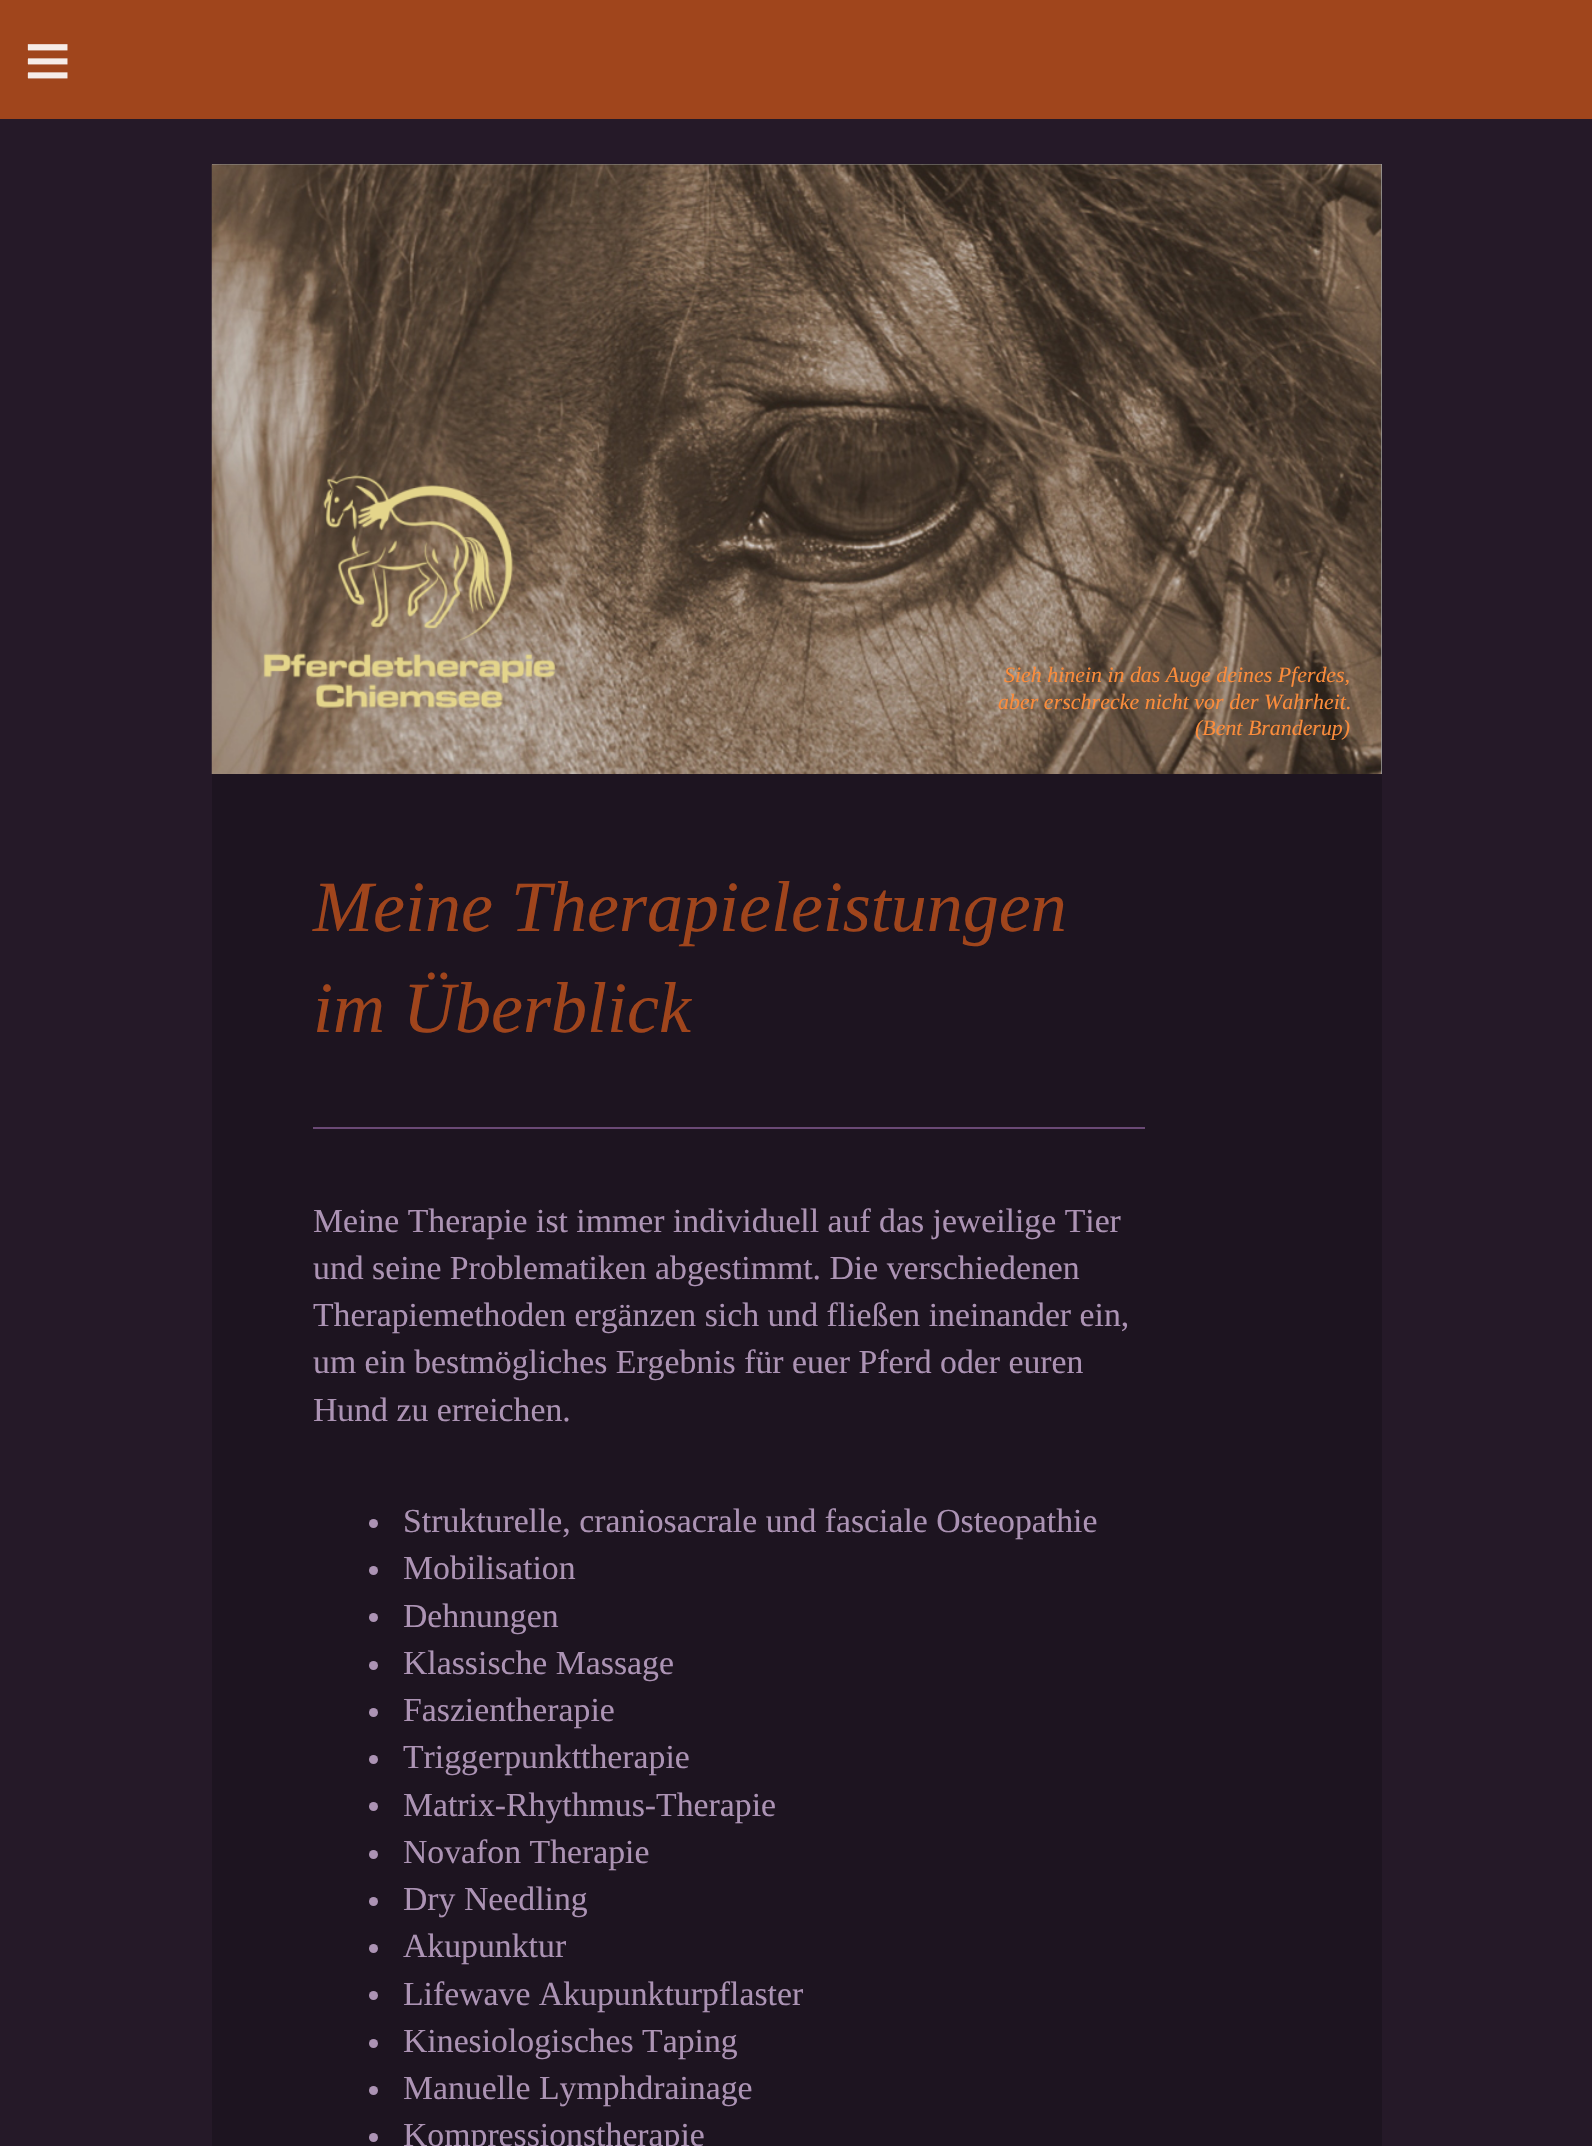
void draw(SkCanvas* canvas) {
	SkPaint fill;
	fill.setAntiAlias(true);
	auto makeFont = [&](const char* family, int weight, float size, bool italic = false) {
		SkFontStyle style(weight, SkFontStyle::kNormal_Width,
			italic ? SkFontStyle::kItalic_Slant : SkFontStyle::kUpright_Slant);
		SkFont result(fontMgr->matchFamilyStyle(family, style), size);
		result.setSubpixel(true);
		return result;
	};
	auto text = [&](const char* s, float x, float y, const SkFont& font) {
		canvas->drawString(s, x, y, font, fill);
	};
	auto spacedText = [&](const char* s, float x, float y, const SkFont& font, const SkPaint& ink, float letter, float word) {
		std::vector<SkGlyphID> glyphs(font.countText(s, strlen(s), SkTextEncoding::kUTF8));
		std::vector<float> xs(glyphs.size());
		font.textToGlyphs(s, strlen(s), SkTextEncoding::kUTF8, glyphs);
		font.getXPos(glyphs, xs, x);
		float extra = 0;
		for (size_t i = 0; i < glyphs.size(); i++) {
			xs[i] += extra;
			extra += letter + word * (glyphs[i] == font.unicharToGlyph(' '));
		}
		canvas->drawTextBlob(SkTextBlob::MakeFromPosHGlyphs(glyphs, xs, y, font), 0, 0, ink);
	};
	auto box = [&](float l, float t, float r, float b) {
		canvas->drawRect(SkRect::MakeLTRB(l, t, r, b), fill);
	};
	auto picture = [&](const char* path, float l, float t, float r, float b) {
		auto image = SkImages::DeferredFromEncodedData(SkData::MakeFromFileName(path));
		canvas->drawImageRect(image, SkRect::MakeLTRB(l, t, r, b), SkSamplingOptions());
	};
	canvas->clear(0xFF251928);
	fill.setColor(0xFFA0451C);
	box(0, 0, 1592, 119);
	fill.setColor(0xFFA0A0A0);
	box(212, 164, 1382, 774);
	picture("image0.png", 211, 164, 1382, 774);
	picture("image1.png", 263, 475, 556, 708);
	fill.setColor(0xFF1D1420);
	box(212, 774, 1382, 2146);
	fill.setColor(0xFF6A4975);
	box(313, 1127, 1145, 1129);
	fill.setColor(0xFFAC93B4);
	canvas->drawCircle(373.5f, 1523.5f, 4.5f, fill);
	canvas->drawCircle(373.5f, 1570.5f, 4.5f, fill);
	canvas->drawCircle(373.5f, 1617.5f, 4.5f, fill);
	canvas->drawCircle(373.5f, 1665.5f, 4.5f, fill);
	canvas->drawCircle(373.5f, 1712.5f, 4.5f, fill);
	canvas->drawCircle(373.5f, 1759.5f, 4.5f, fill);
	canvas->drawCircle(373.5f, 1806.5f, 4.5f, fill);
	canvas->drawCircle(373.5f, 1854.5f, 4.5f, fill);
	canvas->drawCircle(373.5f, 1901.5f, 4.5f, fill);
	canvas->drawCircle(373.5f, 1948.5f, 4.5f, fill);
	canvas->drawCircle(373.5f, 1995.5f, 4.5f, fill);
	canvas->drawCircle(373.5f, 2043.5f, 4.5f, fill);
	canvas->drawCircle(373.5f, 2090.5f, 4.5f, fill);
	canvas->drawCircle(373.5f, 2137.5f, 4.5f, fill);
	auto font1 = makeFont("Liberation Sans", 400, 81);
	fill.setColor(0xFFF6ECE8);
	spacedText("≡", 24, 88, font1, fill, 24, 0);
	auto font2 = makeFont("Liberation Serif", 400, 21.9f, true);
	fill.setColor(0xFFFB8C3B);
	text("Sieh hinein in das Auge deines Pferdes,", 1004, 682, font2);
	spacedText("aber erschrecke nicht vor der Wahrheit.", 998, 709, font2, fill, 0.05f, 0);
	text("(Bent Branderup)", 1195, 735, font2);
	auto font3 = makeFont("Liberation Serif", 400, 72, true);
	fill.setColor(0xFFA0451C);
	text("Meine Therapieleistungen", 313, 931, font3);
	text("im Überblick", 313, 1032, font3);
	auto font4 = makeFont("Liberation Serif", 400, 33.75f);
	fill.setColor(0xFFAC93B4);
	text("Meine Therapie ist immer individuell auf das jeweilige Tier", 313, 1232, font4);
	text("und seine Problematiken abgestimmt. Die verschiedenen", 313, 1279, font4);
	text("Therapiemethoden ergänzen sich und fließen ineinander ein,", 313, 1326, font4);
	text("um ein bestmögliches Ergebnis für euer Pferd oder euren", 313, 1373, font4);
	text("Hund zu erreichen.", 313, 1421, font4);
	text("Strukturelle, craniosacrale und fasciale Osteopathie", 403, 1532, font4);
	text("Mobilisation", 403, 1579, font4);
	text("Dehnungen", 403, 1627, font4);
	text("Klassische Massage", 403, 1674, font4);
	text("Faszientherapie", 403, 1721, font4);
	text("Triggerpunkttherapie", 403, 1768, font4);
	text("Matrix-Rhythmus-Therapie", 403, 1816, font4);
	text("Novafon Therapie", 403, 1863, font4);
	text("Dry Needling", 403, 1910, font4);
	text("Akupunktur", 403, 1957, font4);
	text("Lifewave Akupunkturpflaster", 403, 2005, font4);
	text("Kinesiologisches Taping", 403, 2052, font4);
	text("Manuelle Lymphdrainage", 403, 2099, font4);
	text("Kompressionstherapie", 403, 2146, font4);
}
